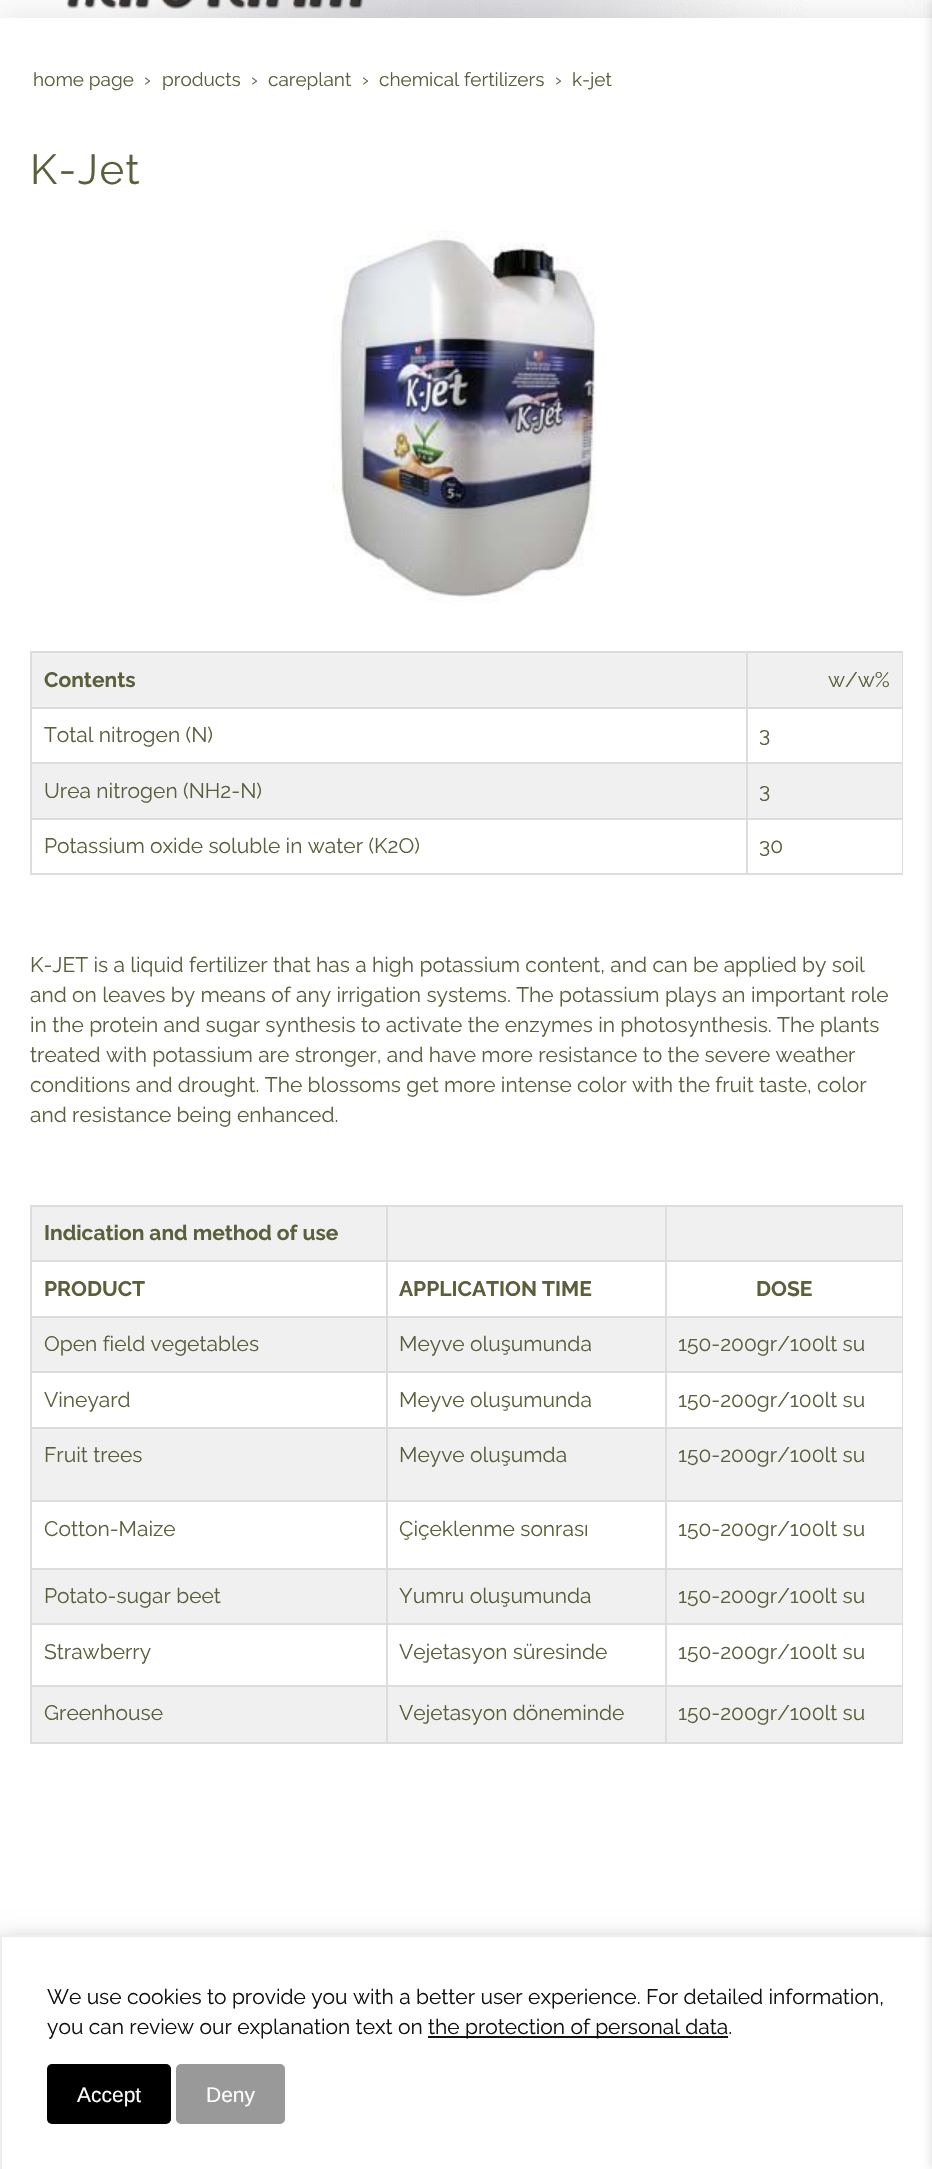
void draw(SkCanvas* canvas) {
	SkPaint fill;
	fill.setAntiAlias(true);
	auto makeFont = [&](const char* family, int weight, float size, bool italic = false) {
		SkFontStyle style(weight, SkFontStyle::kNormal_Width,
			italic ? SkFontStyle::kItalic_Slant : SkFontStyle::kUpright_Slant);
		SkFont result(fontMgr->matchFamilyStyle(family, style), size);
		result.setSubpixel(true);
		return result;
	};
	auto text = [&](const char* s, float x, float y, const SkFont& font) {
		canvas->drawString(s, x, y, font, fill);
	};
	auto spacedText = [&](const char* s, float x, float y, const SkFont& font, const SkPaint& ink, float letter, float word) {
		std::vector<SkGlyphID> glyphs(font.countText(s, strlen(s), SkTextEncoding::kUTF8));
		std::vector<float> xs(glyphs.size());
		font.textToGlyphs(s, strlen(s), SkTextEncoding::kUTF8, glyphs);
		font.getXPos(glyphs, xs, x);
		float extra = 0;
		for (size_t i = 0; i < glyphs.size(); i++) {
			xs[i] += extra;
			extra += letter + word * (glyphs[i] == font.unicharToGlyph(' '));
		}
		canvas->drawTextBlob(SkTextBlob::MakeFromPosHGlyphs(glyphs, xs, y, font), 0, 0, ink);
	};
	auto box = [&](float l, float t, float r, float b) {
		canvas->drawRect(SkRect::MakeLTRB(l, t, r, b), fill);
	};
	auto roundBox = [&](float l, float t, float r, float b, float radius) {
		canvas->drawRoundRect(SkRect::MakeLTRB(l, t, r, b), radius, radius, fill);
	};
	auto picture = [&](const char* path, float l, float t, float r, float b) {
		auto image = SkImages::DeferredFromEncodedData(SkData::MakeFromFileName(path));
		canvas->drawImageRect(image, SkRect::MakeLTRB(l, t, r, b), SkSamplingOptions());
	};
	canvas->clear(0xFFFFFFFF);
	picture("image0.png", 0, 0, 932, 18);
	picture("image1.png", 67, 0, 364, 9);
	fill.setColor(0x1A000000);
	fill.setMaskFilter(SkMaskFilter::MakeBlur(kNormal_SkBlurStyle, 15));
	canvas->drawRect(SkRect::MakeLTRB(0, 18, 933, 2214), fill);
	fill.setMaskFilter(nullptr);
	fill.setColor(0xFFFFFFFF);
	box(0, 18, 932, 1935);
	picture("image2.png", 332, 231, 596, 603);
	fill.setColor(0xFFF0F0F0);
	box(32, 653, 902, 707);
	fill.setColor(0xFFDDDDDD);
	box(746, 651, 903, 653);
	box(746, 707, 903, 709);
	box(746, 762, 903, 764);
	fill.setColor(0xFFF0F0F0);
	box(32, 764, 902, 818);
	fill.setColor(0xFFDDDDDD);
	box(746, 818, 903, 820);
	box(902, 818, 903, 875);
	box(746, 873, 903, 875);
	box(746, 818, 748, 875);
	box(30, 818, 747, 820);
	box(746, 762, 748, 819);
	box(30, 762, 747, 764);
	box(746, 707, 748, 764);
	box(30, 707, 747, 709);
	box(746, 651, 748, 708);
	box(30, 651, 747, 653);
	box(30, 873, 747, 875);
	box(30, 818, 32, 875);
	box(30, 762, 32, 819);
	box(30, 707, 32, 764);
	box(30, 651, 32, 708);
	box(902, 762, 903, 819);
	box(902, 707, 903, 764);
	box(902, 651, 903, 708);
	fill.setColor(0xFFF0F0F0);
	box(32, 1207, 902, 1260);
	fill.setColor(0xFFDDDDDD);
	box(665, 1205, 903, 1207);
	box(665, 1260, 903, 1262);
	box(665, 1316, 903, 1318);
	fill.setColor(0xFFF0F0F0);
	box(32, 1318, 902, 1371);
	fill.setColor(0xFFDDDDDD);
	box(665, 1371, 903, 1373);
	box(665, 1427, 903, 1429);
	fill.setColor(0xFFF0F0F0);
	box(32, 1429, 902, 1500);
	fill.setColor(0xFFDDDDDD);
	box(665, 1500, 903, 1502);
	box(665, 1568, 903, 1570);
	fill.setColor(0xFFF0F0F0);
	box(32, 1570, 902, 1623);
	fill.setColor(0xFFDDDDDD);
	box(665, 1623, 903, 1625);
	box(665, 1685, 903, 1687);
	fill.setColor(0xFFF0F0F0);
	box(32, 1687, 902, 1742);
	fill.setColor(0xFFDDDDDD);
	box(902, 1685, 903, 1743);
	box(665, 1742, 903, 1744);
	box(665, 1685, 667, 1743);
	box(386, 1685, 666, 1687);
	box(665, 1623, 667, 1686);
	box(386, 1623, 666, 1625);
	box(665, 1568, 667, 1625);
	box(386, 1568, 666, 1570);
	box(665, 1500, 667, 1569);
	box(386, 1500, 666, 1502);
	box(665, 1427, 667, 1502);
	box(386, 1427, 666, 1429);
	box(665, 1371, 667, 1428);
	box(386, 1371, 666, 1373);
	box(665, 1316, 667, 1373);
	box(386, 1316, 666, 1318);
	box(665, 1260, 667, 1317);
	box(386, 1260, 666, 1262);
	box(665, 1205, 667, 1262);
	box(386, 1205, 666, 1207);
	box(386, 1742, 666, 1744);
	box(386, 1685, 388, 1743);
	box(30, 1685, 387, 1687);
	box(386, 1623, 388, 1686);
	box(30, 1623, 387, 1625);
	box(386, 1568, 388, 1625);
	box(30, 1568, 387, 1570);
	box(386, 1500, 388, 1569);
	box(30, 1500, 387, 1502);
	box(386, 1427, 388, 1502);
	box(30, 1427, 387, 1429);
	box(386, 1371, 388, 1428);
	box(30, 1371, 387, 1373);
	box(386, 1316, 388, 1373);
	box(30, 1316, 387, 1318);
	box(386, 1260, 388, 1317);
	box(30, 1260, 387, 1262);
	box(386, 1205, 388, 1262);
	box(30, 1205, 387, 1207);
	box(30, 1742, 387, 1744);
	box(30, 1685, 32, 1743);
	box(30, 1623, 32, 1686);
	box(30, 1568, 32, 1625);
	box(30, 1500, 32, 1569);
	box(30, 1427, 32, 1502);
	box(30, 1371, 32, 1428);
	box(30, 1316, 32, 1373);
	box(30, 1260, 32, 1317);
	box(30, 1205, 32, 1262);
	box(902, 1623, 903, 1686);
	box(902, 1568, 903, 1625);
	box(902, 1500, 903, 1569);
	box(902, 1427, 903, 1502);
	box(902, 1371, 903, 1428);
	box(902, 1316, 903, 1373);
	box(902, 1260, 903, 1317);
	box(902, 1205, 903, 1262);
	fill.setColor(0x59000000);
	fill.setMaskFilter(SkMaskFilter::MakeBlur(kNormal_SkBlurStyle, 11));
	canvas->drawRect(SkRect::MakeLTRB(0, 1943, 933, 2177), fill);
	fill.setMaskFilter(nullptr);
	fill.setColor(0xFFFFFFFF);
	box(2, 1937, 932, 2169);
	fill.setColor(0xFFEEEEEE);
	box(0, 1935, 932, 1937);
	box(0, 1935, 2, 2169);
	fill.setColor(0xFF111111);
	box(428, 2036, 728, 2038);
	fill.setColor(0xFF000000);
	roundBox(47, 2064, 171, 2124, 5);
	fill.setColor(0xFF999999);
	roundBox(176, 2064, 285, 2124, 5);
	fill.setColor(0x1A000000);
	fill.setMaskFilter(SkMaskFilter::MakeBlur(kNormal_SkBlurStyle, 4));
	canvas->drawRect(SkRect::MakeLTRB(930, 0, 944, 2169), fill);
	fill.setMaskFilter(nullptr);
	auto font1 = makeFont("Raleway", 400, 19);
	fill.setColor(0xFF5C5F3C);
	text("home page", 33, 86, font1);
	text("›", 144, 86, font1);
	text("products", 162, 86, font1);
	text("›", 251, 86, font1);
	text("careplant", 268, 86, font1);
	text("›", 362, 86, font1);
	text("chemical fertilizers", 379, 86, font1);
	text("›", 555, 86, font1);
	text("k-jet", 572, 86, font1);
	auto font2 = makeFont("Raleway", 400, 42);
	spacedText("K-Jet", 30, 184, font2, fill, 1.5f, 0);
	auto font3 = makeFont("Raleway", 700, 21);
	text("Contents", 44, 687, font3);
	auto font4 = makeFont("Raleway", 400, 21);
	text("w/w%", 828, 687, font4);
	text("Total nitrogen (N)", 44, 742, font4);
	text("3", 759, 742, font4);
	text("Urea nitrogen (NH2-N)", 44, 798, font4);
	text("3", 759, 798, font4);
	text("Potassium oxide soluble in water (K2O)", 44, 853, font4);
	text("30", 759, 853, font4);
	text("K-JET is a liquid fertilizer that has a high potassium content, and can be applied by soil", 30, 972, font4);
	text("and on leaves by means of any irrigation systems. The potassium plays an important role", 30, 1002, font4);
	text("in the protein and sugar synthesis to activate the enzymes in photosynthesis. The plants", 30, 1032, font4);
	text("treated with potassium are stronger, and have more resistance to the severe weather", 30, 1062, font4);
	text("conditions and drought. The blossoms get more intense color with the fruit taste, color", 30, 1092, font4);
	text("and resistance being enhanced.", 30, 1122, font4);
	text("Indication and method of use", 44, 1240, font3);
	text("PRODUCT", 44, 1296, font3);
	text("APPLICATION TIME", 399, 1296, font3);
	text("DOSE", 756, 1296, font3);
	text("Open field vegetables", 44, 1351, font4);
	text("Meyve oluşumunda", 399, 1351, font4);
	text("150-200gr/100lt su", 678, 1351, font4);
	text("Vineyard", 44, 1407, font4);
	text("Meyve oluşumunda", 399, 1407, font4);
	text("150-200gr/100lt su", 678, 1407, font4);
	text("Fruit trees", 44, 1462, font4);
	text("Meyve oluşumda", 399, 1462, font4);
	text("150-200gr/100lt su", 678, 1462, font4);
	text("Cotton-Maize", 44, 1536, font4);
	text("Çiçeklenme sonrası", 399, 1536, font4);
	text("150-200gr/100lt su", 678, 1536, font4);
	text("Potato-sugar beet", 44, 1603, font4);
	text("Yumru oluşumunda", 399, 1603, font4);
	text("150-200gr/100lt su", 678, 1603, font4);
	text("Strawberry", 44, 1659, font4);
	text("Vejetasyon süresinde", 399, 1659, font4);
	text("150-200gr/100lt su", 678, 1659, font4);
	text("Greenhouse", 44, 1720, font4);
	text("Vejetasyon döneminde", 399, 1720, font4);
	text("150-200gr/100lt su", 678, 1720, font4);
	fill.setColor(0xFF111111);
	text("We use cookies to provide you with a better user experience. For detailed information,", 47, 2004, font4);
	text("you can review our explanation text on", 47, 2034, font4);
	text("the protection of personal data.", 428, 2034, font4);
	auto font5 = makeFont("Liberation Sans", 400, 21);
	fill.setColor(0xFFFFFFFF);
	text("Accept", 77, 2102, font5);
	text("Deny", 206, 2102, font5);
}
